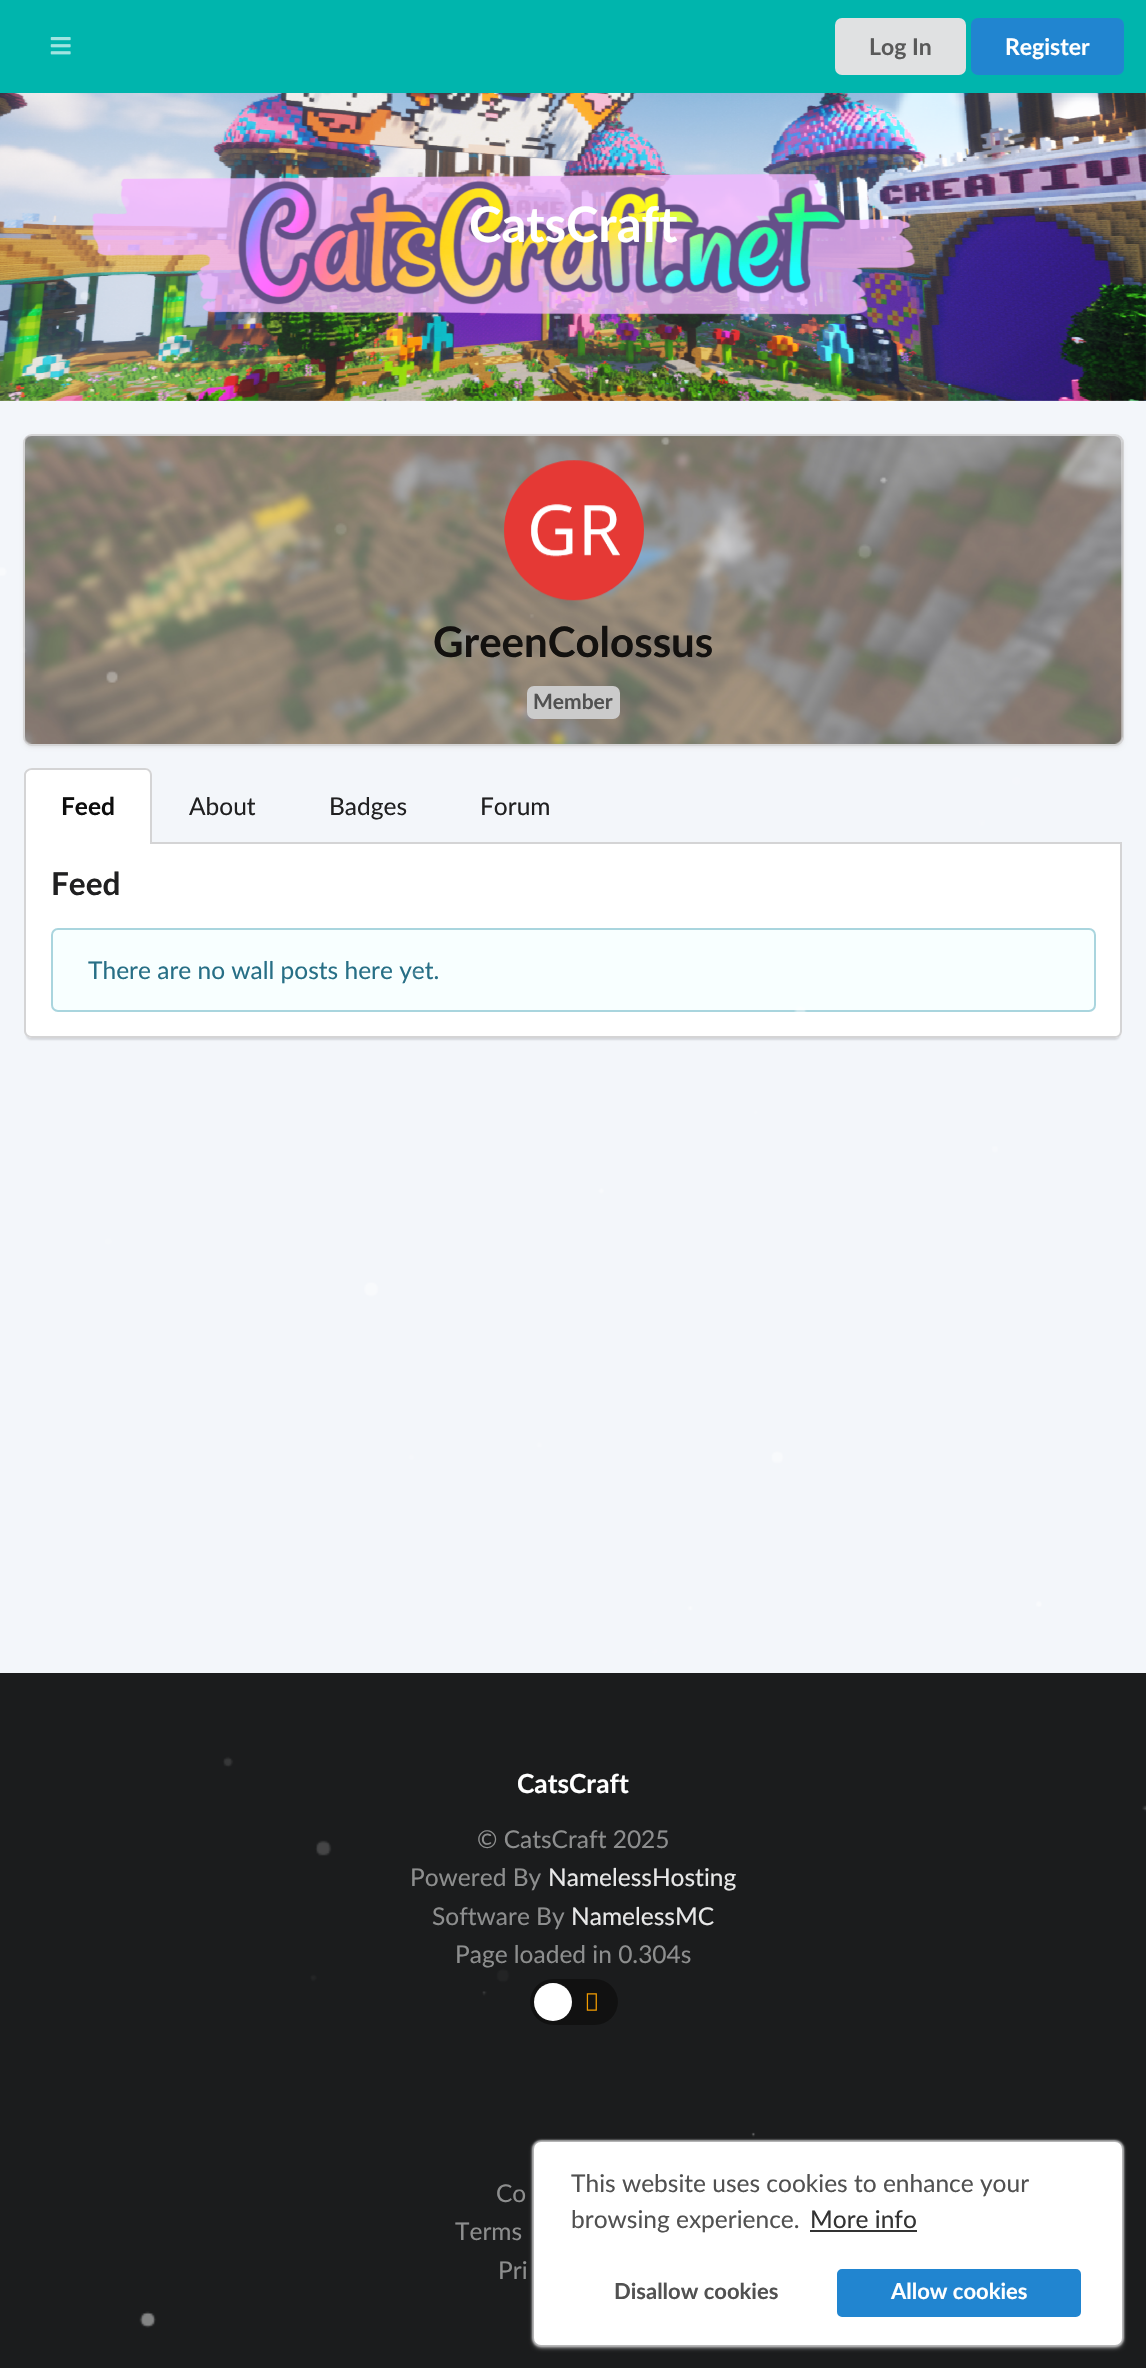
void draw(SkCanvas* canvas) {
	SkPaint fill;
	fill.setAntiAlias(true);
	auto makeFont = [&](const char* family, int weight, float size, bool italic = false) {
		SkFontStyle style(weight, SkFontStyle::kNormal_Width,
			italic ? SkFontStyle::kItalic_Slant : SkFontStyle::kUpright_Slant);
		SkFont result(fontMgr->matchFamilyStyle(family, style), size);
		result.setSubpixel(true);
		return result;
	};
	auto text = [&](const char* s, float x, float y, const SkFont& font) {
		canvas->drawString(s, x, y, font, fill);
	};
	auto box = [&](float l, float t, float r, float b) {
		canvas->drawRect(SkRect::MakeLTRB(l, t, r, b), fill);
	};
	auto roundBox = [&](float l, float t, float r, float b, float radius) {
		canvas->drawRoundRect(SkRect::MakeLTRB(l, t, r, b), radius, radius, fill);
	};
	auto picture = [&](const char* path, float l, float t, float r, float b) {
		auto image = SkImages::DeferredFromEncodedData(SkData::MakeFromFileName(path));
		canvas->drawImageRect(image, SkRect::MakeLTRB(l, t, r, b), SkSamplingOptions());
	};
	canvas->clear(0xFFF3F6FA);
	fill.setColor(0xFF00B5AD);
	box(0, 0, 1146, 93);
	picture("image0.png", 50, 37, 71, 55);
	fill.setColor(0xFFE0E1E2);
	roundBox(835, 18, 966, 75, 7);
	fill.setColor(0xFF2185D0);
	roundBox(971, 18, 1124, 75, 7);
	picture("image1.png", 0, 93, 1146, 401);
	fill.setStyle(SkPaint::kStroke_Style);
	fill.setStrokeWidth(2);
	fill.setColor(0xFFD4D4D5);
	canvas->drawRoundRect(SkRect::MakeLTRB(24, 435, 1123, 745), 8, 8, fill);
	fill.setStyle(SkPaint::kFill_Style);
	fill.setMaskFilter(SkMaskFilter::MakeBlur(kNormal_SkBlurStyle, 2.5f));
	canvas->drawRoundRect(SkRect::MakeLTRB(25, 438, 1122, 746), 7, 7, fill);
	fill.setMaskFilter(nullptr);
	fill.setColor(0xFFFFFFFF);
	roundBox(25, 436, 1122, 744, 7);
	picture("image2.png", 25, 436, 1123, 744);
	picture("image3.png", 504, 460, 644, 601);
	fill.setColor(0xFFCBCBCB);
	roundBox(527, 686, 620, 719, 7);
	fill.setColor(0xFFD4D4D5);
	box(152, 842, 1122, 844);
	fill.setColor(0xFFFFFFFF);
	canvas->drawPath(SkPathBuilder().moveTo(32, 768).lineTo(145, 768).cubicTo(149, 768, 152, 771, 152, 775).lineTo(152, 844).lineTo(25, 844).lineTo(25, 775).cubicTo(25, 771, 28, 768, 32, 768).close().detach(), fill);
	fill.setColor(0xFFD4D4D5);
	canvas->drawPath(SkPathBuilder(SkPathFillType::kEvenOdd).moveTo(32, 768).lineTo(145, 768).cubicTo(149, 768, 152, 771, 152, 775).lineTo(152, 844).lineTo(24, 844).lineTo(24, 775).cubicTo(24, 771, 28, 768, 32, 768).close().moveTo(32, 770).lineTo(145, 770).cubicTo(148, 770, 150, 772, 150, 775).lineTo(150, 844).lineTo(26, 844).lineTo(26, 775).cubicTo(26, 772, 29, 770, 32, 770).close().detach(), fill);
	fill.setColor(0x26222426);
	fill.setMaskFilter(SkMaskFilter::MakeBlur(kNormal_SkBlurStyle, 1));
	canvas->drawRoundRect(SkRect::MakeLTRB(26, 849, 1120, 1040), 5, 5, fill);
	fill.setMaskFilter(nullptr);
	fill.setColor(0xFFFFFFFF);
	canvas->drawPath(SkPathBuilder().moveTo(25, 844).lineTo(1122, 844).lineTo(1122, 1031).cubicTo(1122, 1035, 1119, 1038, 1115, 1038).lineTo(32, 1038).cubicTo(28, 1038, 25, 1035, 25, 1031).close().detach(), fill);
	fill.setColor(0xFFD4D4D5);
	canvas->drawPath(SkPathBuilder(SkPathFillType::kEvenOdd).moveTo(24, 844).lineTo(1122, 844).lineTo(1122, 1031).cubicTo(1122, 1035, 1119, 1038, 1115, 1038).lineTo(32, 1038).cubicTo(28, 1038, 24, 1035, 24, 1031).close().moveTo(26, 844).lineTo(1120, 844).lineTo(1120, 1031).cubicTo(1120, 1034, 1118, 1036, 1115, 1036).lineTo(32, 1036).cubicTo(29, 1036, 26, 1034, 26, 1031).close().detach(), fill);
	fill.setColor(0xFFF8FFFF);
	canvas->drawRoundRect(SkRect::MakeLTRB(52, 929, 1095, 1011), 6, 6, fill);
	fill.setStyle(SkPaint::kStroke_Style);
	fill.setColor(0xFFA9D5DE);
	canvas->drawRoundRect(SkRect::MakeLTRB(52, 929, 1095, 1011), 6, 6, fill);
	fill.setStyle(SkPaint::kFill_Style);
	fill.setColor(0xFF1B1C1D);
	box(0, 1673, 1146, 2368);
	fill.setColor(0xFF111111);
	roundBox(530, 1979, 618, 2025, 23);
	fill.setColor(0xFFFFFFFF);
	canvas->drawCircle(553, 2002, 19, fill);
	picture("image4.png", 586, 1993, 597, 2011);
	fill.setColor(0xFFBABABB);
	fill.setMaskFilter(SkMaskFilter::MakeBlur(kNormal_SkBlurStyle, 1));
	canvas->drawRoundRect(SkRect::MakeLTRB(532, 2140, 1124, 2347), 9, 9, fill);
	fill.setMaskFilter(nullptr);
	fill.setMaskFilter(SkMaskFilter::MakeBlur(kNormal_SkBlurStyle, 2.5f));
	canvas->drawRoundRect(SkRect::MakeLTRB(534, 2144, 1122, 2347), 7, 7, fill);
	fill.setMaskFilter(nullptr);
	fill.setColor(0xFFFFFFFF);
	roundBox(534, 2142, 1122, 2345, 7);
	fill.setColor(0xFF333333);
	box(810, 2230, 917, 2232);
	fill.setColor(0xFF2185D0);
	canvas->drawRoundRect(SkRect::MakeLTRB(835, 2267, 1083, 2319), 7, 7, fill);
	fill.setStyle(SkPaint::kStroke_Style);
	fill.setStrokeWidth(4);
	fill.setColor(0xFFFFFFFF);
	canvas->drawRoundRect(SkRect::MakeLTRB(835, 2267, 1083, 2319), 7, 7, fill);
	auto font1 = makeFont("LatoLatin", 700, 23);
	fill.setStyle(SkPaint::kFill_Style);
	fill.setColor(0xFF5A5A5A);
	text("Log In", 869, 55, font1);
	fill.setColor(0xFFFFFFFF);
	text("Register", 1005, 55, font1);
	auto font2 = makeFont("LatoLatin", 700, 49);
	text("CatsCraft", 469, 242, font2);
	auto font3 = makeFont("LatoLatin", 700, 42);
	fill.setColor(0xFF13110F);
	text("GreenColossus", 433, 657, font3);
	auto font4 = makeFont("LatoLatin", 700, 21);
	fill.setColor(0xFF515151);
	text("Member", 533, 709, font4);
	auto font5 = makeFont("LatoLatin", 700, 24.5f);
	fill.setColor(0xFF0D0D0D);
	text("Feed", 61, 815, font5);
	auto font6 = makeFont("LatoLatin", 400, 24.5f);
	fill.setColor(0xFF202021);
	text("About", 189, 815, font6);
	text("Badges", 329, 815, font6);
	text("Forum", 480, 815, font6);
	auto font7 = makeFont("LatoLatin", 700, 31.5f);
	text("Feed", 51, 895, font7);
	fill.setColor(0xFF276F86);
	text("There are no wall posts here yet.", 88, 979, font6);
	auto font8 = makeFont("LatoLatin", 700, 26.25f);
	fill.setColor(0xFFFFFFFF);
	text("CatsCraft", 517, 1793, font8);
	fill.setColor(0xFF8D8E8E);
	text("© CatsCraft 2025", 477, 1848, font6);
	text("Powered By", 410, 1886, font6);
	fill.setColor(0xFFE8E8E8);
	text("NamelessHosting", 548, 1886, font6);
	fill.setColor(0xFF8D8E8E);
	text("Software By", 432, 1925, font6);
	fill.setColor(0xFFE8E8E8);
	text("NamelessMC", 571, 1925, font6);
	fill.setColor(0xFF8D8E8E);
	text("Page loaded in 0.304s", 455, 1963, font6);
	text("Co", 496, 2202, font6);
	text("Terms", 455, 2240, font6);
	text("Pri", 498, 2279, font6);
	fill.setColor(0xFF515151);
	text("This website uses cookies to enhance your", 571, 2192, font6);
	text("browsing experience.", 571, 2228, font6);
	fill.setColor(0xFF333333);
	text("More info", 810, 2228, font6);
	auto font9 = makeFont("LatoLatin", 700, 22);
	fill.setColor(0xFF515151);
	text("Disallow cookies", 614, 2299, font9);
	fill.setColor(0xFFFFFFFF);
	text("Allow cookies", 891, 2299, font9);
	picture("image5.png", 0, 196, 1146, 2328);
}
